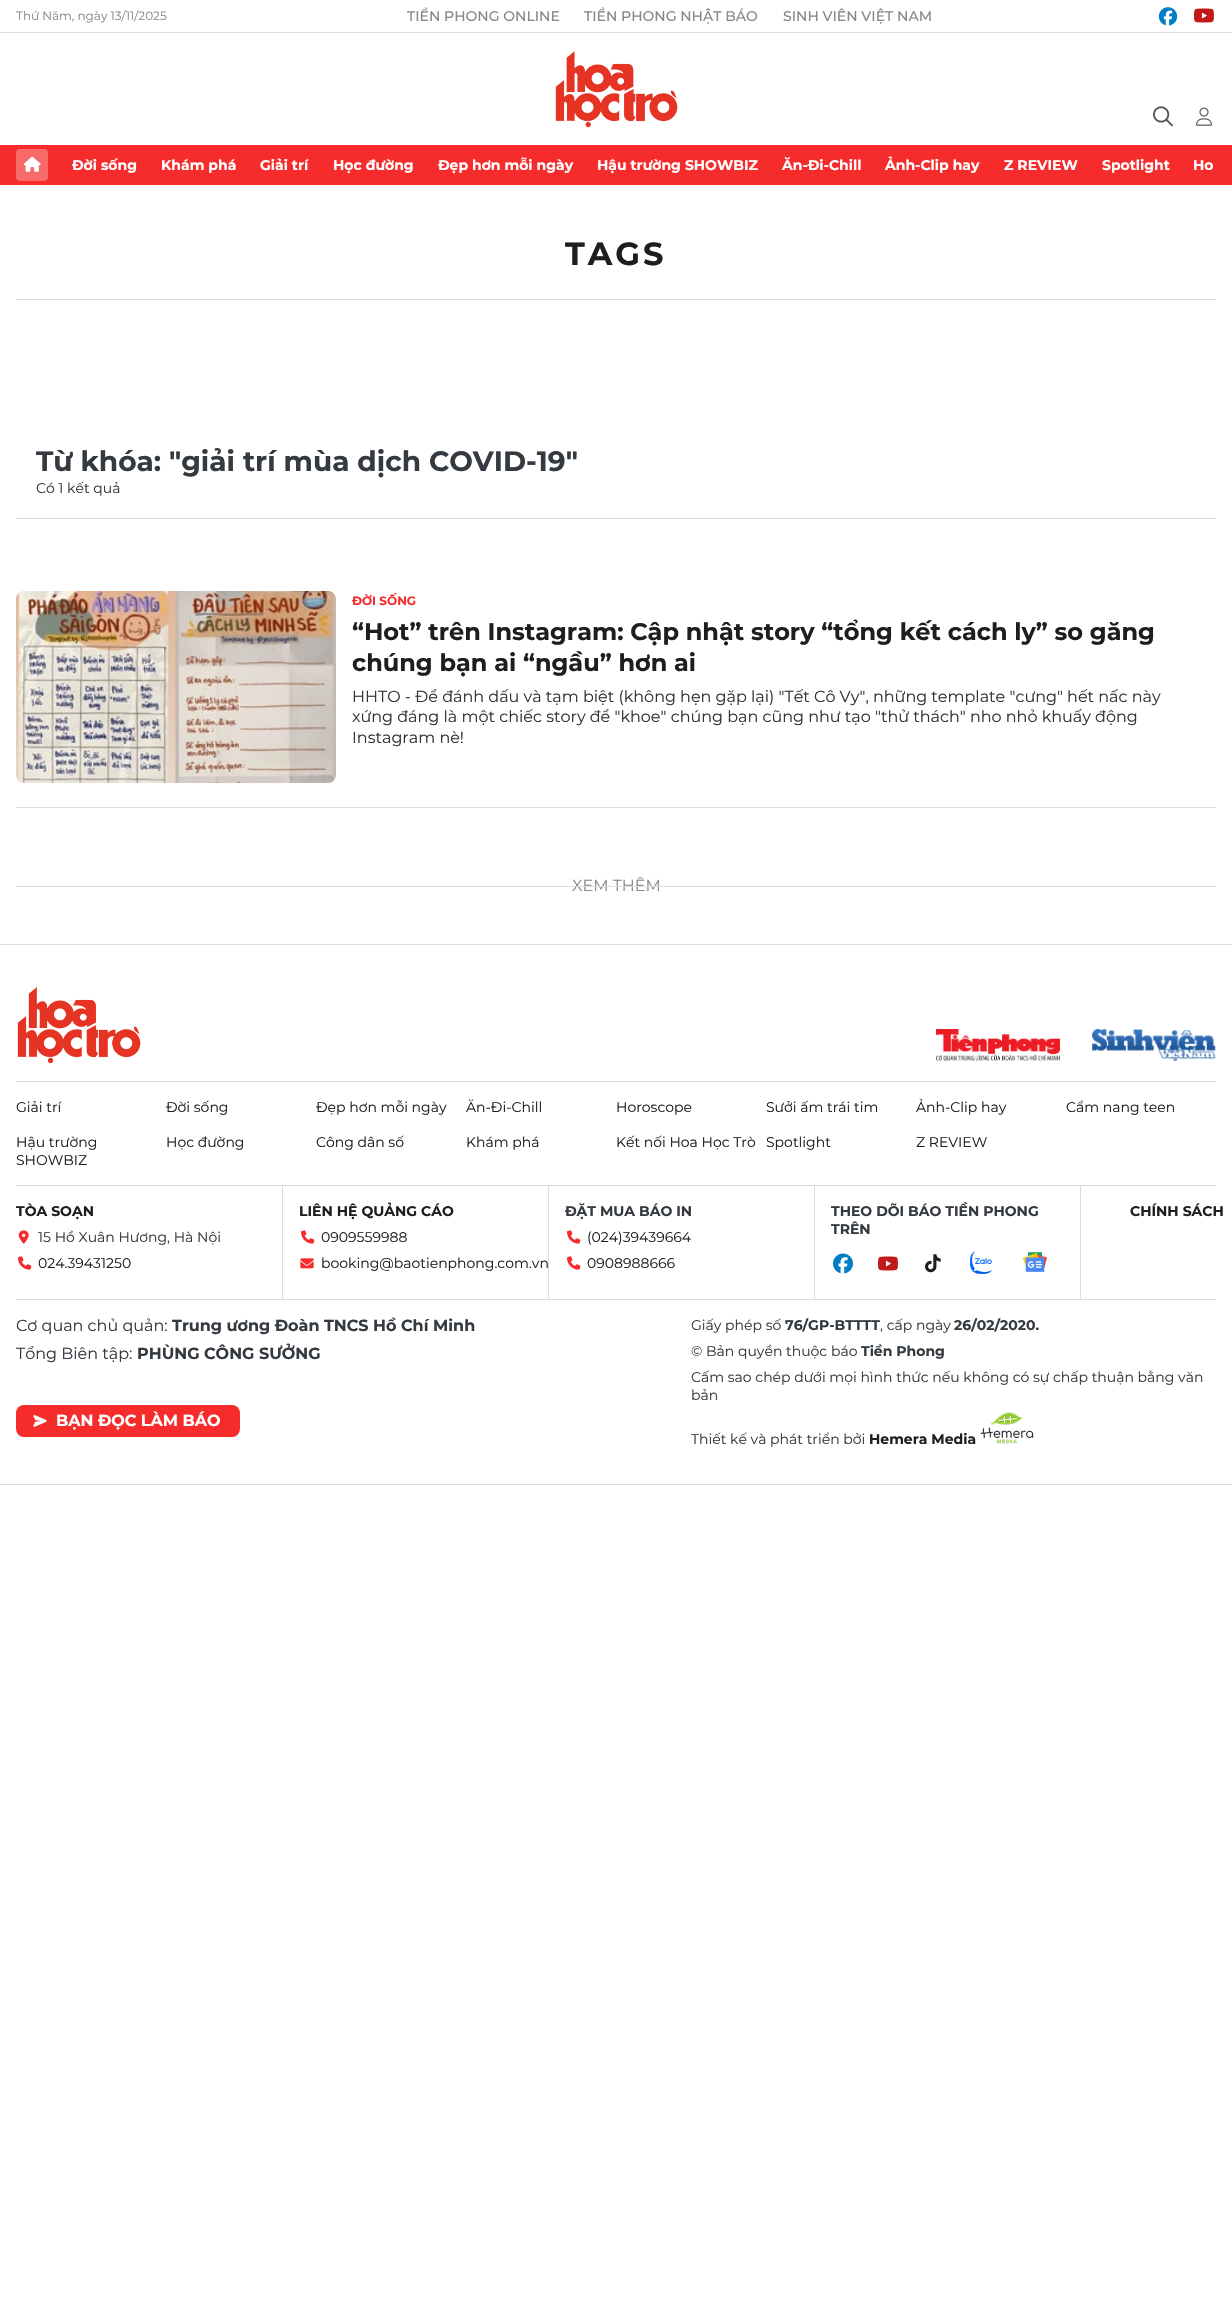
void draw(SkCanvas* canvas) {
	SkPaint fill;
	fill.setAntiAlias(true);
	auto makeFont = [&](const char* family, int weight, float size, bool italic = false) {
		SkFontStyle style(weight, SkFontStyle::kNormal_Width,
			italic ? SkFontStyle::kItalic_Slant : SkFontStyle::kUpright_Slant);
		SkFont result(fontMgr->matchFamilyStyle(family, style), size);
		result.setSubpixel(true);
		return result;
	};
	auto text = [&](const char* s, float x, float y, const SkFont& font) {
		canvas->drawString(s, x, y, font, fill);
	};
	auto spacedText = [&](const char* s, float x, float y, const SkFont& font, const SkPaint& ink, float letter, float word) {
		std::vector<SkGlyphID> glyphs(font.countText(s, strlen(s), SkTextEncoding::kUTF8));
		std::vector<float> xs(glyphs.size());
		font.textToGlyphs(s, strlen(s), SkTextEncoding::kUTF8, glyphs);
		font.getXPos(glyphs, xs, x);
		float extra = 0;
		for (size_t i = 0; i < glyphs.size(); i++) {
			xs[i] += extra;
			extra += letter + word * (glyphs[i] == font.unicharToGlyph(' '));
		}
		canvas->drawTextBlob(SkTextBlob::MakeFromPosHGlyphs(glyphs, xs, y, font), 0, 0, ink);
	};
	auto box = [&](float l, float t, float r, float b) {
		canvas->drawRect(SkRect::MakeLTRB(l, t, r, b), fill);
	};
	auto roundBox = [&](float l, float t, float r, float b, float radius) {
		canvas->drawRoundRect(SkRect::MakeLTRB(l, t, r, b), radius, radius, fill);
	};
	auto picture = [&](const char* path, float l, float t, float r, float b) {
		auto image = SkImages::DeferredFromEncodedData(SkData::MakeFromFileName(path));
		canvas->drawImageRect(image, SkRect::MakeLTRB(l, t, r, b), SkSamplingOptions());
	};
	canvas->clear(0xFFFFFFFF);
	fill.setColor(0xFFDDDDDD);
	box(0, 32, 1232, 33);
	picture("image0.png", 1158, 7, 1178, 26);
	picture("image1.png", 1194, 8, 1214, 23);
	picture("image2.png", 555, 51, 678, 128);
	picture("image3.png", 1153, 106, 1173, 127);
	picture("image4.png", 1196, 107, 1212, 126);
	fill.setColor(0xFFF62C2C);
	box(0, 145, 1232, 185);
	fill.setColor(0xFFF96B6B);
	roundBox(16, 149, 48, 181, 4);
	picture("image5.png", 23, 156, 41, 172);
	fill.setColor(0xFFDDDDDD);
	box(16, 299, 1216, 300);
	box(16, 518, 1216, 519);
	box(16, 807, 1216, 808);
	picture("image6.png", 16, 591, 336, 783);
	box(0, 944, 1232, 945);
	box(0, 1484, 1232, 1485);
	box(16, 1081, 1216, 1082);
	picture("image7.png", 17, 987, 141, 1064);
	picture("image8.png", 936, 1029, 1060, 1061);
	picture("image9.png", 1092, 1029, 1216, 1061);
	box(16, 1185, 1216, 1186);
	box(16, 1299, 1216, 1300);
	picture("image10.png", 18, 1230, 29, 1244);
	picture("image11.png", 18, 1256, 32, 1270);
	box(282, 1186, 283, 1299);
	picture("image11.png", 301, 1230, 315, 1244);
	picture("image12.png", 300, 1258, 314, 1269);
	box(548, 1186, 549, 1299);
	picture("image11.png", 567, 1230, 581, 1244);
	picture("image11.png", 567, 1256, 581, 1270);
	box(814, 1186, 815, 1299);
	picture("image13.png", 833, 1253, 853, 1274);
	picture("image1.png", 878, 1256, 898, 1271);
	picture("image14.png", 925, 1254, 941, 1273);
	picture("image15.png", 970, 1251, 992, 1274);
	picture("image16.png", 1023, 1252, 1047, 1272);
	box(1080, 1186, 1081, 1299);
	fill.setColor(0xFFF62C2C);
	roundBox(16, 1405, 240, 1437, 8);
	picture("image17.png", 33, 1415, 47, 1427);
	picture("image18.png", 980, 1412, 1034, 1444);
	auto font1 = makeFont("Montserrat", 400, 12);
	fill.setColor(0xFF888888);
	text("Thứ Năm, ngày 13/11/2025", 16, 20, font1);
	auto font2 = makeFont("Montserrat", 500, 14);
	text("TIỀN PHONG ONLINE", 407, 21, font2);
	text("TIỀN PHONG NHẬT BÁO", 584, 21, font2);
	text("SINH VIÊN VIỆT NAM", 783, 21, font2);
	auto font3 = makeFont("Montserrat", 700, 14);
	fill.setColor(0xFFFFFFFF);
	text("Đời sống", 72, 170, font3);
	text("Khám phá", 161, 170, font3);
	text("Giải trí", 260, 170, font3);
	text("Học đường", 333, 170, font3);
	text("Đẹp hơn mỗi ngày", 438, 170, font3);
	text("Hậu trường SHOWBIZ", 597, 170, font3);
	text("Ăn-Đi-Chill", 782, 170, font3);
	text("Ảnh-Clip hay", 885, 170, font3);
	text("Z REVIEW", 1004, 170, font3);
	text("Spotlight", 1102, 170, font3);
	text("Ho", 1193, 170, font3);
	auto font4 = makeFont("Montserrat", 700, 32);
	fill.setColor(0xFF1E1E1E);
	spacedText("TAGS", 565, 265, font4, fill, 3, 0);
	auto font5 = makeFont("Montserrat", 700, 28);
	fill.setColor(0xFF343A40);
	text("Từ khóa: \"giải trí mùa dịch COVID-19\"", 36, 471, font5);
	auto font6 = makeFont("Montserrat", 400, 14);
	text("Có 1 kết quả", 36, 493, font6);
	auto font7 = makeFont("Montserrat", 700, 12);
	fill.setColor(0xFFF62C2C);
	text("ĐỜI SỐNG", 352, 605, font7);
	auto font8 = makeFont("Montserrat", 700, 24);
	fill.setColor(0xFF1E1E1E);
	text("“Hot” trên Instagram: Cập nhật story “tổng kết cách ly” so găng", 352, 640, font8);
	text("chúng bạn ai “ngầu” hơn ai", 352, 671, font8);
	auto font9 = makeFont("Montserrat", 400, 16);
	fill.setColor(0xFF333333);
	text("HHTO - Để đánh dấu và tạm biệt (không hẹn gặp lại) \"Tết Cô Vy\", những template \"cưng\" hết nấc này", 352, 702, font9);
	text("xứng đáng là một chiếc story để \"khoe\" chúng bạn cũng như tạo \"thử thách\" nho nhỏ khuấy động", 352, 722, font9);
	text("Instagram nè!", 352, 743, font9);
	fill.setColor(0xFF888888);
	text("XEM THÊM", 572, 891, font9);
	fill.setColor(0xFFDDDDDD);
	box(16, 886, 1216, 887);
	fill.setColor(0xFF1E1E1E);
	text("Giải trí", 16, 1112, font6);
	text("Đời sống", 166, 1112, font6);
	text("Đẹp hơn mỗi ngày", 316, 1112, font6);
	text("Ăn-Đi-Chill", 466, 1112, font6);
	text("Horoscope", 616, 1112, font6);
	text("Sưởi ấm trái tim", 766, 1112, font6);
	text("Ảnh-Clip hay", 916, 1112, font6);
	text("Cẩm nang teen", 1066, 1112, font6);
	text("Hậu trường", 16, 1147, font6);
	text("SHOWBIZ", 16, 1165, font6);
	text("Học đường", 166, 1147, font6);
	text("Công dân số", 316, 1147, font6);
	text("Khám phá", 466, 1147, font6);
	text("Kết nối Hoa Học Trò", 616, 1147, font6);
	text("Spotlight", 766, 1147, font6);
	text("Z REVIEW", 916, 1147, font6);
	text("TÒA SOẠN", 16, 1216, font3);
	fill.setColor(0xFF343A40);
	text("15 Hồ Xuân Hương, Hà Nội", 38, 1242, font6);
	fill.setColor(0xFF1E1E1E);
	text("024.39431250", 38, 1268, font6);
	text("LIÊN HỆ QUẢNG CÁO", 299, 1216, font3);
	text("0909559988", 321, 1242, font6);
	text("booking@baotienphong.com.vn", 321, 1268, font6);
	fill.setColor(0xFF343A40);
	text("ĐẶT MUA BÁO IN", 565, 1216, font3);
	fill.setColor(0xFF1E1E1E);
	text("(024)39439664", 587, 1242, font6);
	text("0908988666", 587, 1268, font6);
	fill.setColor(0xFF343A40);
	text("THEO DÕI BÁO TIỀN PHONG", 831, 1216, font3);
	text("TRÊN", 831, 1234, font3);
	fill.setColor(0xFF1E1E1E);
	text("CHÍNH SÁCH", 1130, 1216, font3);
	fill.setColor(0xFF343A40);
	text("Cơ quan chủ quản:", 16, 1331, font9);
	auto font10 = makeFont("Montserrat", 700, 16);
	text("Trung ương Đoàn TNCS Hồ Chí Minh", 172, 1331, font10);
	text("Tổng Biên tập:", 16, 1359, font9);
	text("PHÙNG CÔNG SƯỞNG", 137, 1359, font10);
	fill.setColor(0xFFFFFFFF);
	text("BẠN ĐỌC LÀM BÁO", 56, 1426, font10);
	fill.setColor(0xFF343A40);
	text("Giấy phép số", 691, 1330, font6);
	text("76/GP-BTTTT", 785, 1330, font3);
	text(", cấp ngày", 880, 1330, font6);
	text("26/02/2020.", 954, 1330, font3);
	text("© Bản quyền thuộc báo", 691, 1356, font6);
	text("Tiền Phong", 861, 1356, font3);
	text("Cấm sao chép dưới mọi hình thức nếu không có sự chấp thuận bằng văn", 691, 1382, font6);
	text("bản", 691, 1400, font6);
	text("Thiết kế và phát triển bởi", 691, 1444, font6);
	fill.setColor(0xFF1E1E1E);
	text("Hemera Media", 869, 1444, font3);
}
